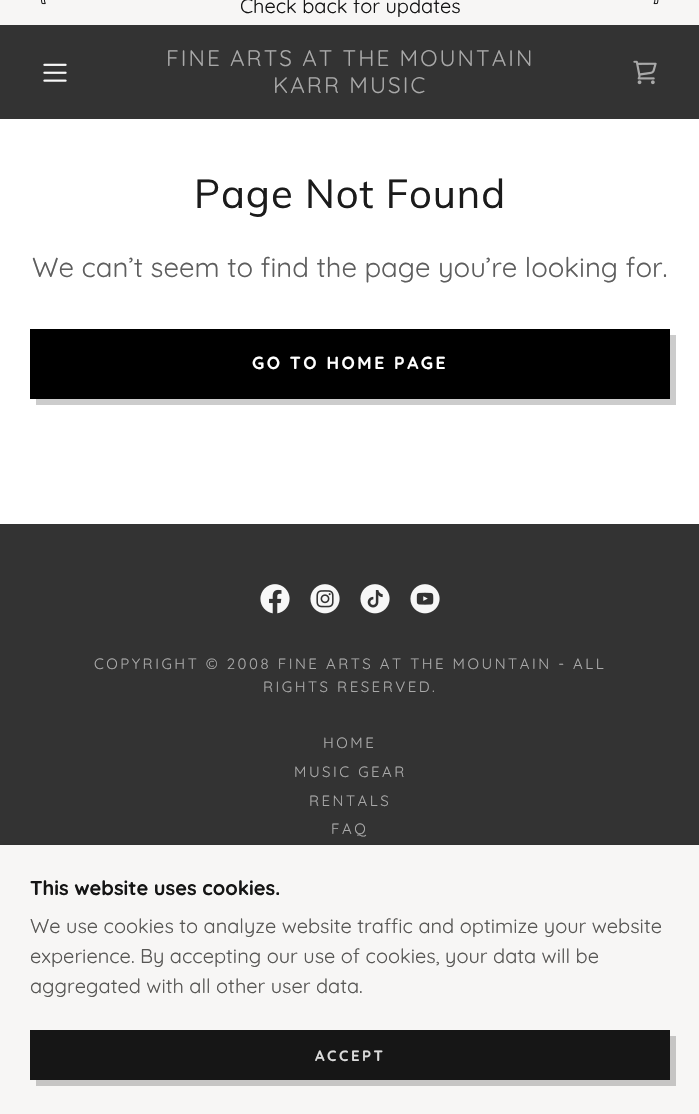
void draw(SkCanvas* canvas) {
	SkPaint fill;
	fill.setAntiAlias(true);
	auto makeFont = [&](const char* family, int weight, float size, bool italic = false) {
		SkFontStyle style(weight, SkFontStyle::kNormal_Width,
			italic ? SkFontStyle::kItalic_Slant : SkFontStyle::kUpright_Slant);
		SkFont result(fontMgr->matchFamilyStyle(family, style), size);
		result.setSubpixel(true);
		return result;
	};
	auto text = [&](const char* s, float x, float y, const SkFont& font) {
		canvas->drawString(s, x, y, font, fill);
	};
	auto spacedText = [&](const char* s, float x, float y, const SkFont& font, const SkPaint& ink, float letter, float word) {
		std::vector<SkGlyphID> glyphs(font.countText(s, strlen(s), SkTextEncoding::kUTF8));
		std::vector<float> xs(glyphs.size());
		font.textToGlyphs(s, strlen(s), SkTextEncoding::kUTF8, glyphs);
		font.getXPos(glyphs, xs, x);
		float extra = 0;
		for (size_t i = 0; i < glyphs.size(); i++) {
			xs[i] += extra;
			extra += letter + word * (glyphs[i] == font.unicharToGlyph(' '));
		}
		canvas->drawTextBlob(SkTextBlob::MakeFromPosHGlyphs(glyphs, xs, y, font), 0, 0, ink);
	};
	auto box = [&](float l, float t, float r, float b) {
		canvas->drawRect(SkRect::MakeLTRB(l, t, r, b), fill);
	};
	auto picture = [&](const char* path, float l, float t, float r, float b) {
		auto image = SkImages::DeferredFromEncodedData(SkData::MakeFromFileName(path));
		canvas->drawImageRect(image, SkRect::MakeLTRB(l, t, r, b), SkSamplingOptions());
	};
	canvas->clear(0xFF333333);
	fill.setColor(0xFFF7F6F5);
	box(0, 0, 699, 25);
	picture("image0.png", 41, 0, 46, 5);
	picture("image1.png", 653, 0, 659, 5);
	picture("image2.png", 43, 63, 67, 82);
	picture("image3.png", 633, 60, 657, 85);
	fill.setColor(0xFFFFFFFF);
	box(0, 119, 699, 524);
	fill.setColor(0xFF000000);
	box(30, 329, 670, 399);
	fill.setColor(0xFFCCCCCC);
	canvas->drawPath(SkPathBuilder().moveTo(36, 399).lineTo(36, 405).lineTo(676, 405).lineTo(676, 335).lineTo(670, 335).lineTo(670, 399).close().detach(), fill);
	picture("image4.png", 260, 584, 290, 614);
	picture("image5.png", 310, 584, 340, 614);
	picture("image6.png", 360, 584, 390, 614);
	picture("image7.png", 410, 584, 440, 614);
	fill.setColor(0x4D000000);
	fill.setMaskFilter(SkMaskFilter::MakeBlur(kNormal_SkBlurStyle, 4));
	canvas->drawRect(SkRect::MakeLTRB(0, 848, 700, 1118), fill);
	fill.setMaskFilter(nullptr);
	fill.setColor(0xFFF7F6F5);
	box(0, 845, 699, 1114);
	fill.setColor(0xFF161616);
	box(30, 1030, 670, 1080);
	fill.setColor(0xFFC6C5C4);
	canvas->drawPath(SkPathBuilder().moveTo(36, 1080).lineTo(36, 1086).lineTo(676, 1086).lineTo(676, 1036).lineTo(670, 1036).lineTo(670, 1080).close().detach(), fill);
	auto font1 = makeFont("Quicksand", 400, 20);
	fill.setColor(0xFF151515);
	text("Check back for updates", 240, 13, font1);
	auto font2 = makeFont("Quicksand", 400, 22.5f);
	fill.setColor(0xFFA9A9A9);
	spacedText("FINE ARTS AT THE MOUNTAIN", 166, 66, font2, fill, 2.05f, 0);
	spacedText("KARR MUSIC", 273, 93, font2, fill, 2.05f, 0);
	auto font3 = makeFont("Muli", 400, 40);
	fill.setColor(0xFF1B1B1B);
	spacedText("Page Not Found", 194, 208, font3, fill, 0.9f, 0);
	auto font4 = makeFont("Quicksand", 400, 27.5f);
	fill.setColor(0xFF5E5E5E);
	text("We can’t seem to find the page you’re looking for.", 32, 277, font4);
	auto font5 = makeFont("Quicksand", 700, 17.5f);
	fill.setColor(0xFFFFFFFF);
	spacedText("GO TO HOME PAGE", 252, 369, font5, fill, 2.5f, 0);
	auto font6 = makeFont("Quicksand", 400, 15);
	fill.setColor(0xFFA9A9A9);
	spacedText("COPYRIGHT © 2008 FINE ARTS AT THE MOUNTAIN - ALL", 94, 669, font6, fill, 2.5f, 0);
	spacedText("RIGHTS RESERVED.", 263, 692, font6, fill, 2.5f, 0);
	spacedText("HOME", 323, 748, font6, fill, 2.5f, 0);
	spacedText("MUSIC GEAR", 294, 777, font6, fill, 2.5f, 0);
	spacedText("RENTALS", 309, 806, font6, fill, 2.5f, 0);
	spacedText("FAQ", 331, 834, font6, fill, 2.5f, 0);
	auto font7 = makeFont("Quicksand", 700, 20);
	fill.setColor(0xFF151515);
	text("This website uses cookies.", 30, 895, font7);
	fill.setColor(0xFF585755);
	text("We use cookies to analyze website traffic and optimize your website", 30, 933, font1);
	text("experience. By accepting our use of cookies, your data will be", 30, 963, font1);
	text("aggregated with all other user data.", 30, 993, font1);
	auto font8 = makeFont("Quicksand", 700, 15);
	fill.setColor(0xFFDBDBDB);
	spacedText("ACCEPT", 315, 1061, font8, fill, 2.5f, 0);
}
